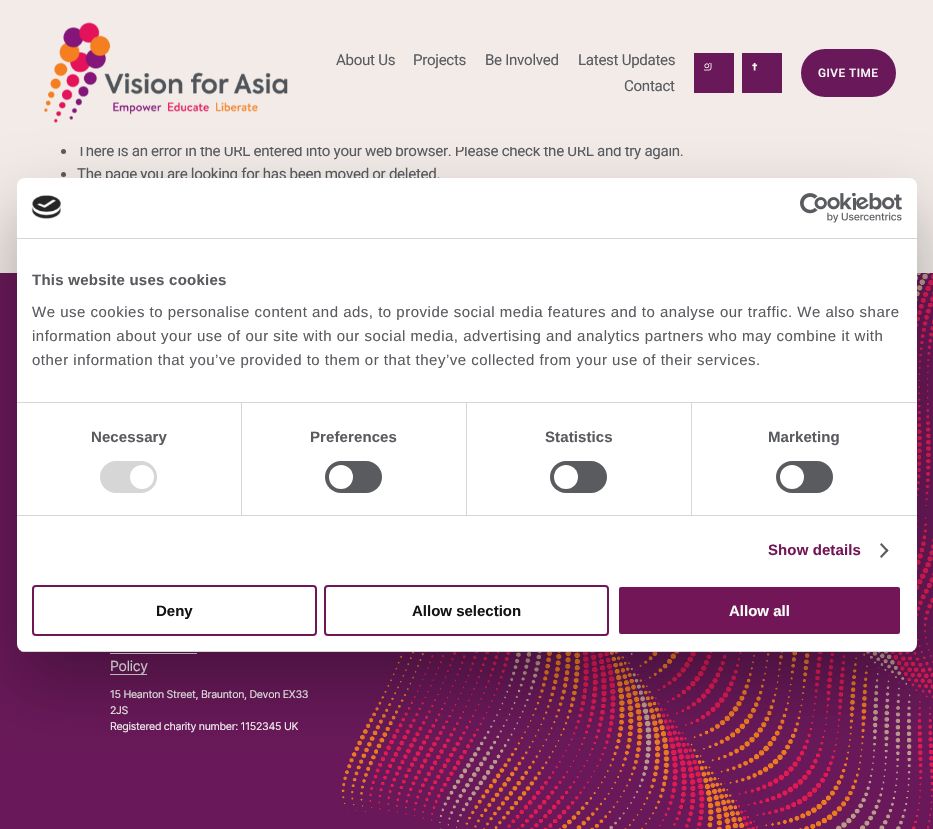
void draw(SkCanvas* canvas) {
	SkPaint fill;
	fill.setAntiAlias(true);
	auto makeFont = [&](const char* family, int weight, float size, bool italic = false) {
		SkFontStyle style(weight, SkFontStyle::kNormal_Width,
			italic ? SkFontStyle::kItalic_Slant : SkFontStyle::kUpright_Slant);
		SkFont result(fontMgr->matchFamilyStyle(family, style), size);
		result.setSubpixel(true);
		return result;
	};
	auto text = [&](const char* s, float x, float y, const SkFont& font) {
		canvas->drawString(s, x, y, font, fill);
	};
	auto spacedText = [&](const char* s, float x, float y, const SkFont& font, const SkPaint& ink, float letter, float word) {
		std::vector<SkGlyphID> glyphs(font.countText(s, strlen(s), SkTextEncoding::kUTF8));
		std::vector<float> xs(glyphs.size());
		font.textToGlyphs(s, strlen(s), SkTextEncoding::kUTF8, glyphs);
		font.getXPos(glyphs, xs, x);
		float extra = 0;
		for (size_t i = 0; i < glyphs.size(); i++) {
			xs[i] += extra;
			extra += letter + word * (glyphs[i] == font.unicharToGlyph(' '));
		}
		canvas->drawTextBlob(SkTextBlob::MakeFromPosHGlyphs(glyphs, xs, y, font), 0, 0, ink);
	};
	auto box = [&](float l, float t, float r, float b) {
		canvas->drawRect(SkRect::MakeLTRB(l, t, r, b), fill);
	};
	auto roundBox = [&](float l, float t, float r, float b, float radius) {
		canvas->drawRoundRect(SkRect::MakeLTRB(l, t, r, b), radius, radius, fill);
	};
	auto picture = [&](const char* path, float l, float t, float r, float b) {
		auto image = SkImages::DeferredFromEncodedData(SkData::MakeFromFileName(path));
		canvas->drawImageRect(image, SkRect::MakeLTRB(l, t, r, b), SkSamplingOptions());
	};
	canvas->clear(0xFFF2EBE8);
	picture("image0.png", 44, 22, 288, 123);
	fill.setColor(0xFF691959);
	box(694, 53, 734, 93);
	picture("image1.png", 704, 63, 712, 71);
	box(742, 53, 782, 93);
	picture("image2.png", 752, 63, 758, 71);
	roundBox(801, 49, 896, 97, 24);
	fill.setColor(0xFF595B5F);
	canvas->drawCircle(63.5f, 151.5f, 2.5f, fill);
	canvas->drawCircle(63.5f, 174.5f, 2.5f, fill);
	fill.setColor(0xFF691959);
	box(0, 273, 933, 829);
	picture("image3.png", 341, 273, 933, 829);
	fill.setColor(0xFFE2E3E3);
	box(110, 653, 197, 654);
	box(110, 674, 147, 675);
	auto font1 = makeFont("Roboto", 400, 15.1f);
	fill.setColor(0xFF595B5F);
	spacedText("About Us", 336, 65, font1, fill, -0.3f, 0);
	spacedText("Projects", 413, 65, font1, fill, -0.3f, 0);
	spacedText("Be Involved", 485, 65, font1, fill, -0.3f, 0);
	spacedText("Latest Updates", 578, 65, font1, fill, -0.3f, 0);
	spacedText("Contact", 624, 91, font1, fill, -0.3f, 0);
	auto font2 = makeFont("Roboto", 500, 11.75f);
	fill.setColor(0xFFFAFAFA);
	spacedText("GIVE TIME", 818, 77, font2, fill, 0.5f, 0);
	fill.setColor(0xFF595B5F);
	spacedText("There is an error in the URL entered into your web browser. Please check the URL and try again.", 77, 156, font1, fill, -0.3f, 0);
	fill.setColor(0xFFF2EBE8);
	box(77, 144, 672, 147);
	fill.setColor(0xFF595B5F);
	spacedText("The page you are looking for has been moved or deleted.", 77, 179, font1, fill, -0.3f, 0);
	auto font3 = makeFont("Inter", 400, 14);
	fill.setColor(0xFFFAFAFA);
	spacedText("Policy", 110, 671, font3, fill, -0.3f, 0);
	auto font4 = makeFont("Inter", 400, 10.6f);
	spacedText("15 Heanton Street, Braunton, Devon EX33", 110, 698, font4, fill, -0.3f, 0);
	spacedText("2JS", 110, 714, font4, fill, -0.3f, 0);
	spacedText("Registered charity number: 1152345 UK", 110, 730, font4, fill, -0.3f, 0);
	fill.setColor(0x4D000000);
	fill.setMaskFilter(SkMaskFilter::MakeBlur(kNormal_SkBlurStyle, 34));
	canvas->drawRoundRect(SkRect::MakeLTRB(17, 210, 917, 684), 8, 8, fill);
	fill.setMaskFilter(nullptr);
	fill.setColor(0xFFFFFFFF);
	roundBox(17, 178, 917, 652, 8);
	fill.setColor(0xFFD6D6D6);
	box(17, 238, 917, 239);
	picture("image4.png", 31, 195, 61, 219);
	picture("image5.png", 800, 193, 902, 223);
	box(17, 402, 917, 403);
	auto font5 = makeFont("Liberation Sans", 700, 15);
	fill.setColor(0xFF595B5F);
	spacedText("This website uses cookies", 32, 285, font5, fill, 0.25f, 0);
	auto font6 = makeFont("Liberation Sans", 400, 15);
	spacedText("We use cookies to personalise content and ads, to provide social media features and to analyse our traffic. We also share", 32, 317, font6, fill, 0.5f, 0);
	spacedText("information about your use of our site with our social media, advertising and analytics partners who may combine it with", 32, 341, font6, fill, 0.5f, 0);
	spacedText("other information that you’ve provided to them or that they’ve collected from your use of their services.", 32, 365, font6, fill, 0.5f, 0);
	fill.setColor(0xFFD6D6D6);
	box(17, 515, 917, 516);
	box(241, 403, 242, 515);
	fill.setColor(0xFF595B5F);
	spacedText("Necessary", 91, 442, font5, fill, 0.1f, 0);
	fill.setColor(0xFFD6D6D6);
	roundBox(100, 461, 157, 493, 16);
	fill.setColor(0xFFFFFFFF);
	canvas->drawCircle(142, 477, 12, fill);
	fill.setColor(0xFFD6D6D6);
	box(466, 403, 467, 515);
	fill.setColor(0xFF595B5F);
	spacedText("Preferences", 310, 442, font5, fill, 0.1f, 0);
	roundBox(325, 461, 382, 493, 16);
	fill.setColor(0xFFFFFFFF);
	canvas->drawCircle(341, 477, 12, fill);
	fill.setColor(0xFFD6D6D6);
	box(691, 403, 692, 515);
	fill.setColor(0xFF595B5F);
	spacedText("Statistics", 545, 442, font5, fill, 0.1f, 0);
	roundBox(550, 461, 607, 493, 16);
	fill.setColor(0xFFFFFFFF);
	canvas->drawCircle(566, 477, 12, fill);
	fill.setColor(0xFF595B5F);
	spacedText("Marketing", 768, 442, font5, fill, 0.1f, 0);
	roundBox(776, 461, 833, 493, 16);
	fill.setColor(0xFFFFFFFF);
	canvas->drawCircle(792, 477, 12, fill);
	fill.setColor(0xFF731657);
	spacedText("Show details", 768, 555, font5, fill, 0.1f, 0);
	fill.setColor(0xFF595B5F);
	canvas->drawPath(SkPathBuilder().moveTo(881.5f, 543).lineTo(888.5f, 550.5f).lineTo(887, 552).lineTo(880, 544.5f).close().detach(), fill);
	canvas->drawPath(SkPathBuilder().moveTo(887, 549).lineTo(888.5f, 550.5f).lineTo(881.5f, 558).lineTo(880, 556.5f).close().detach(), fill);
	canvas->save();
	canvas->clipPath(SkPathBuilder().moveTo(25, 178).lineTo(909, 178).cubicTo(913.5f, 178, 917, 181.5f, 917, 186).lineTo(917, 644).cubicTo(917, 648.5f, 913.5f, 652, 909, 652).lineTo(25, 652).cubicTo(20.5f, 652, 17, 648.5f, 17, 644).lineTo(17, 186).cubicTo(17, 181.5f, 20.5f, 178, 25, 178).close().detach(), true);
	fill.setColor(0xFFD6D6D6);
	box(17, 651, 917, 652);
	canvas->restore();
	fill.setStyle(SkPaint::kStroke_Style);
	fill.setStrokeWidth(2);
	fill.setColor(0xFF731657);
	canvas->drawRoundRect(SkRect::MakeLTRB(33, 586, 316, 635), 3, 3, fill);
	fill.setStyle(SkPaint::kFill_Style);
	fill.setColor(0xFF141414);
	text("Deny", 156, 616, font5);
	fill.setStyle(SkPaint::kStroke_Style);
	fill.setColor(0xFF731657);
	canvas->drawRoundRect(SkRect::MakeLTRB(325, 586, 608, 635), 3, 3, fill);
	fill.setStyle(SkPaint::kFill_Style);
	fill.setColor(0xFF141414);
	text("Allow selection", 412, 616, font5);
	fill.setColor(0xFF731657);
	canvas->drawRoundRect(SkRect::MakeLTRB(618, 586, 901, 635), 3, 3, fill);
	fill.setStyle(SkPaint::kStroke_Style);
	fill.setColor(0xFFFFFFFF);
	canvas->drawRoundRect(SkRect::MakeLTRB(618, 586, 901, 635), 3, 3, fill);
	fill.setStyle(SkPaint::kFill_Style);
	fill.setColor(0xFFFAFAFA);
	text("Allow all", 729, 616, font5);
}
